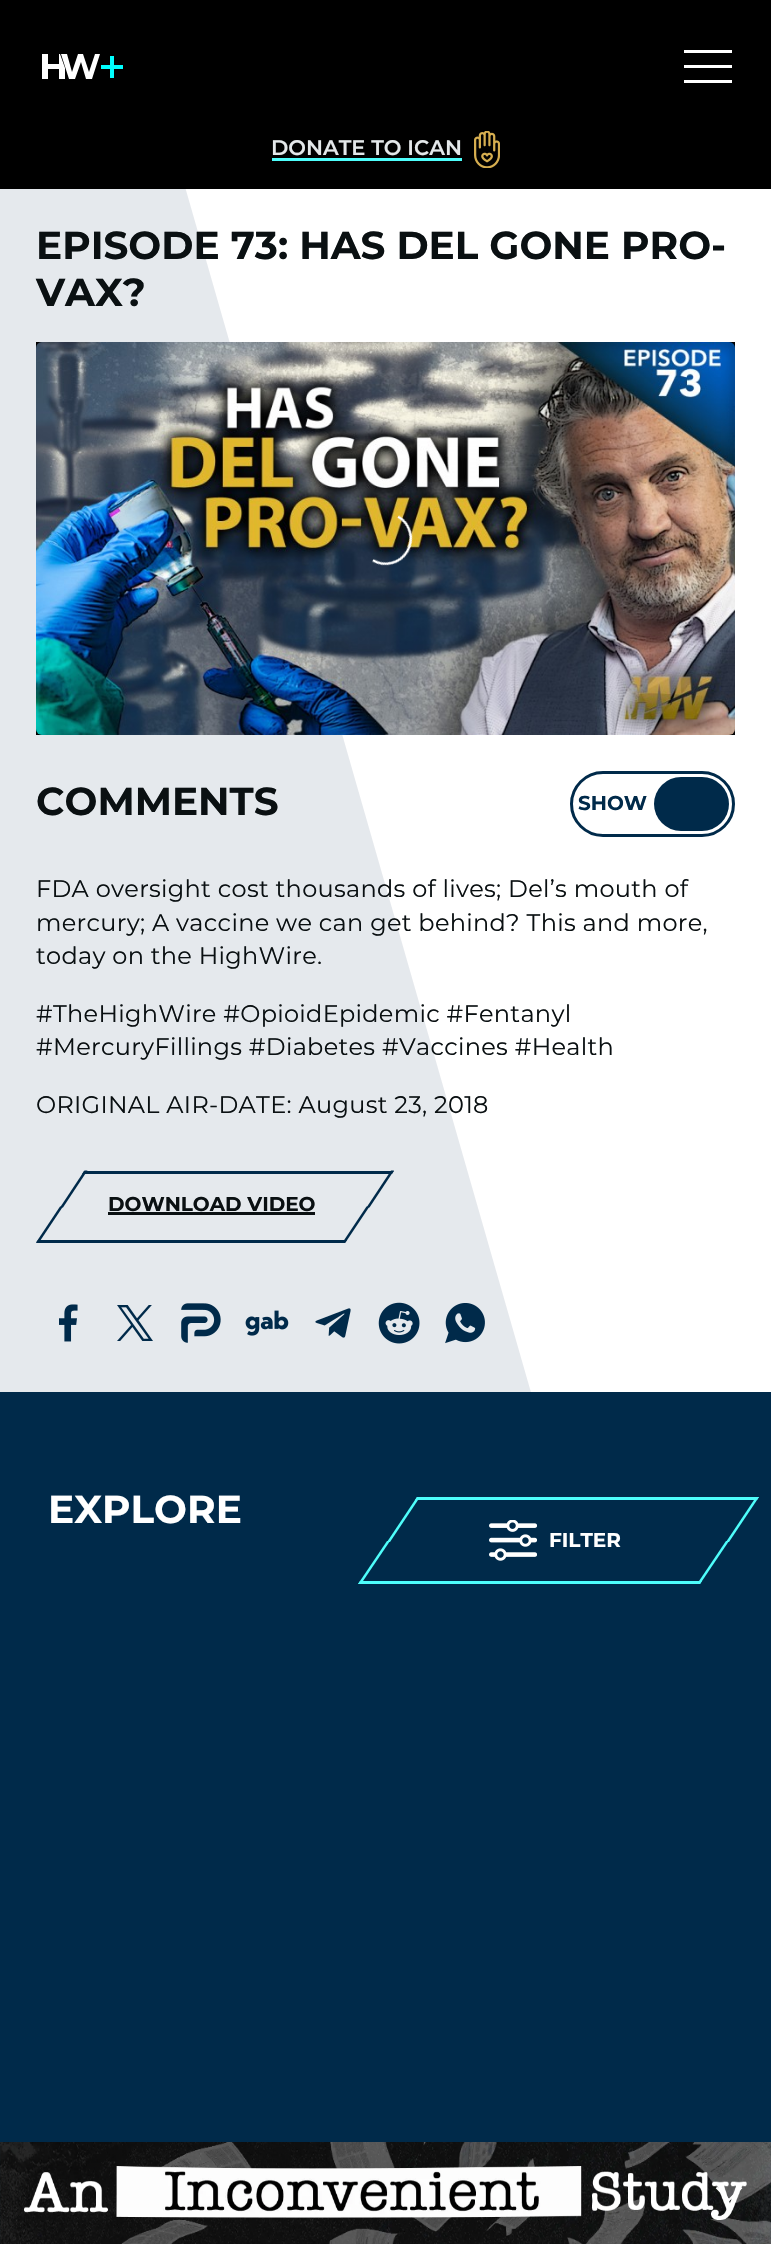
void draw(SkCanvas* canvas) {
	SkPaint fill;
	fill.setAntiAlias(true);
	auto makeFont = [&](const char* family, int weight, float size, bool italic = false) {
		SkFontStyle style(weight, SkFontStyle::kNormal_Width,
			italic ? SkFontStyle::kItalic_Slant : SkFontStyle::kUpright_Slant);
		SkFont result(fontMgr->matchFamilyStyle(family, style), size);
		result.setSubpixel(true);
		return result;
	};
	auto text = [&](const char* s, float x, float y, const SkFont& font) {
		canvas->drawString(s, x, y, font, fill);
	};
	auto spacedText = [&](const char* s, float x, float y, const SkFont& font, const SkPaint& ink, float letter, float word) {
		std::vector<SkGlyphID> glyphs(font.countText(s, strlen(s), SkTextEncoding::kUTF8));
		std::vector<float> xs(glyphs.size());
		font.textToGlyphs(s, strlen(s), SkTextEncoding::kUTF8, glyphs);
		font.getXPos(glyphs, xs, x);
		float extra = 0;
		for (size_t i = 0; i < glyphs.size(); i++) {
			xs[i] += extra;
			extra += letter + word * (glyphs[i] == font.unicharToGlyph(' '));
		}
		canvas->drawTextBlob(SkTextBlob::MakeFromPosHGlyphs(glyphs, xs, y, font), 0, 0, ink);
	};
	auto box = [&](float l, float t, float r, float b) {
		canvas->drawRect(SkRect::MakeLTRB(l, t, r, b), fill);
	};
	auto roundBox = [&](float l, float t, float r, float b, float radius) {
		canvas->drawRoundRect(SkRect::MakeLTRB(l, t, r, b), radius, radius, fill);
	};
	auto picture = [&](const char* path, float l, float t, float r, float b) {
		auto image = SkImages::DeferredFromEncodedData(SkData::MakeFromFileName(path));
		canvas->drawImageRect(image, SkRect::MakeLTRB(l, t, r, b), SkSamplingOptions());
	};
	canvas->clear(0xFFFFFFFF);
	fill.setColor(0xFF000000);
	box(0, 0, 771, 189);
	fill.setColor(0xFFFFFFFF);
	canvas->drawPath(SkPathBuilder(SkPathFillType::kEvenOdd).moveTo(60, 54).lineTo(59, 54).lineTo(59, 64).lineTo(48, 64).lineTo(48, 54).lineTo(42, 54).lineTo(42, 79).lineTo(48, 79).lineTo(48, 69).lineTo(59, 69).lineTo(59, 79).lineTo(65, 79).lineTo(65, 68).close().moveTo(100, 54).lineTo(95, 54).lineTo(89, 72).lineTo(83, 54).lineTo(78, 54).lineTo(72, 72).lineTo(67, 54).lineTo(61, 54).lineTo(69, 79).lineTo(75, 79).lineTo(81, 62).lineTo(86, 79).lineTo(92, 79).close().detach(), fill);
	fill.setColor(0xFF00FFFF);
	box(101, 65, 123, 69);
	box(110, 56, 114, 78);
	fill.setColor(0xFFFFFFFF);
	box(684, 65, 732, 68);
	box(684, 50, 732, 53);
	box(684, 80, 732, 83);
	fill.setColor(0xFF4EFDFB);
	box(272, 158, 462, 161);
	picture("image0.png", 474, 131, 500, 168);
	picture("image1.png", 0, 189, 531, 1392);
	picture("image2.png", 36, 342, 735, 735);
	fill.setStyle(SkPaint::kStroke_Style);
	fill.setStrokeWidth(3);
	fill.setColor(0xFF002A4A);
	canvas->drawRoundRect(SkRect::MakeLTRB(571.5f, 772.5f, 733.5f, 835.5f), 31.5f, 31.5f, fill);
	fill.setStyle(SkPaint::kFill_Style);
	roundBox(654, 777, 729, 831, 27);
	canvas->drawPath(SkPathBuilder().moveTo(84, 1171).lineTo(394, 1171).lineTo(392, 1174).lineTo(82, 1174).close().detach(), fill);
	canvas->drawPath(SkPathBuilder().moveTo(391, 1170.5f).lineTo(394, 1170.5f).lineTo(369.5f, 1207.5f).lineTo(366.5f, 1207.5f).close().detach(), fill);
	canvas->drawPath(SkPathBuilder().moveTo(84.5f, 1170.5f).lineTo(87.5f, 1170.5f).lineTo(63, 1207.5f).lineTo(60, 1207.5f).close().detach(), fill);
	fill.setColor(0xFF0A1012);
	box(108, 1212, 315, 1215);
	fill.setColor(0xFF002A4A);
	canvas->drawPath(SkPathBuilder().moveTo(366.5f, 1206.5f).lineTo(369.5f, 1206.5f).lineTo(345.5f, 1242.5f).lineTo(342.5f, 1242.5f).close().detach(), fill);
	canvas->drawPath(SkPathBuilder().moveTo(38, 1240).lineTo(347, 1240).lineTo(345, 1243).lineTo(36, 1243).close().detach(), fill);
	canvas->drawPath(SkPathBuilder().moveTo(60, 1206.5f).lineTo(63, 1206.5f).lineTo(39, 1242.5f).lineTo(36, 1242.5f).close().detach(), fill);
	picture("image3.png", 59, 1304, 78, 1342);
	picture("image4.png", 117, 1305, 153, 1341);
	picture("image5.png", 181, 1303, 221, 1343);
	picture("image6.png", 245, 1310, 289, 1336);
	picture("image7.png", 315, 1308, 351, 1338);
	picture("image8.png", 378, 1302, 420, 1344);
	picture("image9.png", 445, 1303, 485, 1344);
	box(0, 1392, 771, 2244);
	fill.setColor(0xFF4EFDFB);
	canvas->drawPath(SkPathBuilder().moveTo(417, 1497).lineTo(759, 1497).lineTo(757, 1500).lineTo(415, 1500).close().detach(), fill);
	canvas->drawPath(SkPathBuilder().moveTo(756, 1497).lineTo(759, 1497).lineTo(729, 1542).lineTo(726, 1542).close().detach(), fill);
	canvas->drawPath(SkPathBuilder().moveTo(417, 1497).lineTo(420, 1497).lineTo(390, 1542).lineTo(387, 1542).close().detach(), fill);
	picture("image10.png", 489, 1520, 537, 1561);
	canvas->drawPath(SkPathBuilder().moveTo(726, 1541).lineTo(729, 1541).lineTo(700, 1584).lineTo(697, 1584).close().detach(), fill);
	canvas->drawPath(SkPathBuilder().moveTo(360, 1581).lineTo(702, 1581).lineTo(700, 1584).lineTo(358, 1584).close().detach(), fill);
	canvas->drawPath(SkPathBuilder().moveTo(387, 1541).lineTo(390, 1541).lineTo(361, 1584).lineTo(358, 1584).close().detach(), fill);
	picture("image11.png", 0, 2142, 771, 2244);
	picture("image12.png", 24, 2166, 747, 2220);
	fill.setStyle(SkPaint::kStroke_Style);
	fill.setStrokeWidth(2.2f);
	fill.setColor(0xFFFFFFFF);
	canvas->drawPath(SkPathBuilder().moveTo(716.5f, 2187.5f).lineTo(729, 2200).lineTo(741.5f, 2187.5f).detach(), fill);
	auto font1 = makeFont("Montserrat", 600, 21);
	fill.setStyle(SkPaint::kFill_Style);
	fill.setColor(0xFFE4E8EA);
	text("DONATE TO ICAN", 271, 155, font1);
	auto font2 = makeFont("Montserrat", 700, 39);
	fill.setColor(0xFF0A1012);
	text("EPISODE 73: HAS DEL GONE PRO-", 36, 259, font2);
	text("VAX?", 36, 306, font2);
	text("COMMENTS", 36, 815, font2);
	auto font3 = makeFont("Montserrat", 700, 20);
	fill.setColor(0xFF002A4A);
	text("SHOW", 578, 810, font3);
	auto font4 = makeFont("Montserrat", 400, 24);
	fill.setColor(0xFF0A1012);
	spacedText("FDA oversight cost thousands of lives; Del’s mouth of", 36, 897, font4, fill, 0.3f, 0);
	spacedText("mercury; A vaccine we can get behind? This and more,", 36, 931, font4, fill, 0.3f, 0);
	spacedText("today on the HighWire.", 36, 964, font4, fill, 0.3f, 0);
	spacedText("#TheHighWire #OpioidEpidemic #Fentanyl", 36, 1022, font4, fill, 0.3f, 0);
	spacedText("#MercuryFillings #Diabetes #Vaccines #Health", 36, 1055, font4, fill, 0.3f, 0);
	spacedText("ORIGINAL AIR-DATE: August 23, 2018", 36, 1113, font4, fill, 0.3f, 0);
	text("DOWNLOAD VIDEO", 108, 1211, font3);
	fill.setColor(0xFFFFFFFF);
	text("EXPLORE", 48, 1523, font2);
	text("FILTER", 549, 1547, font3);
}
